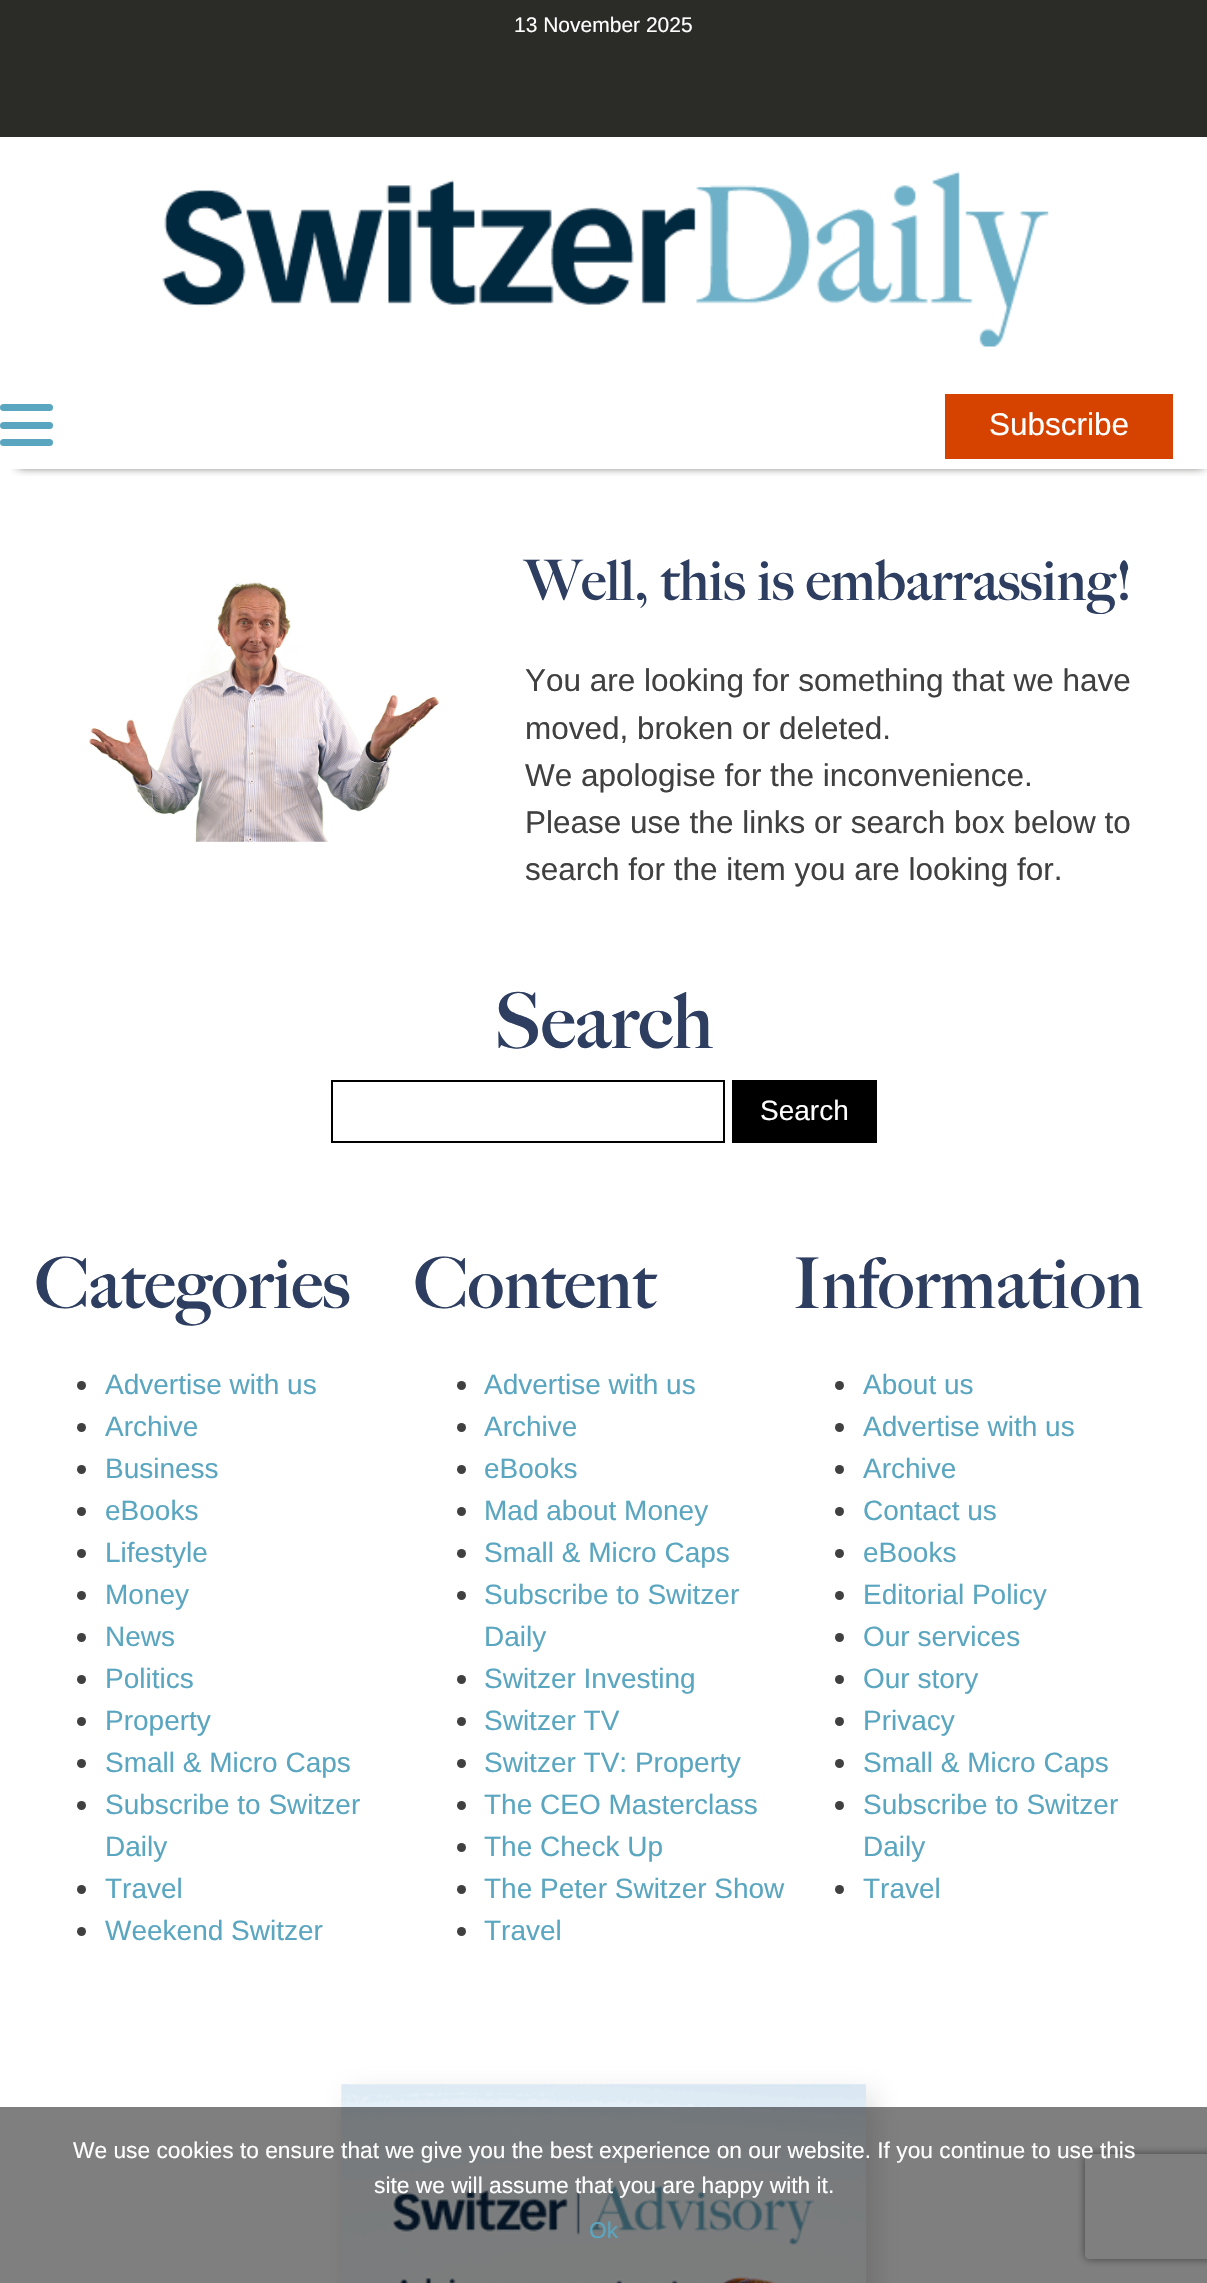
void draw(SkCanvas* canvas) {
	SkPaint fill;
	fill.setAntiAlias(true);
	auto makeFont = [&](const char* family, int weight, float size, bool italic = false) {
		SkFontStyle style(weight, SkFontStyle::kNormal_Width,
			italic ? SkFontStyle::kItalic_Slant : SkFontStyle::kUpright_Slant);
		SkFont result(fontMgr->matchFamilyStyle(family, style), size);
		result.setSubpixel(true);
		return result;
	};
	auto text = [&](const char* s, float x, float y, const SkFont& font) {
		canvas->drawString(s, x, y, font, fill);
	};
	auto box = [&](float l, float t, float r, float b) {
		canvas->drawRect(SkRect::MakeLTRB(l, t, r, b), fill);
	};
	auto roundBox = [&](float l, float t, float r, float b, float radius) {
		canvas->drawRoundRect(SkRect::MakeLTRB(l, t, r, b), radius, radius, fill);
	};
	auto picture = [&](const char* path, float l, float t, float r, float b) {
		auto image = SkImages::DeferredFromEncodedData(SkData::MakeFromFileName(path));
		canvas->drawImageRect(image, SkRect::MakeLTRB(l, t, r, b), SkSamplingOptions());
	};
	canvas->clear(0xFFFFFFFF);
	fill.setColor(0xFF2B2C28);
	box(0, 0, 1207, 137);
	picture("image0.png", 162, 171, 1049, 347);
	canvas->save();
	canvas->clipRect(SkRect::MakeLTRB(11, 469, 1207, 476));
	fill.setMaskFilter(SkMaskFilter::MakeBlur(kNormal_SkBlurStyle, 5));
	canvas->drawRect(SkRect::MakeLTRB(18, 399, 1204, 466), fill);
	fill.setMaskFilter(nullptr);
	canvas->restore();
	fill.setColor(0xFF5AA6C0);
	roundBox(0, 404, 53, 411, 3.5f);
	roundBox(0, 422, 53, 429, 3.5f);
	roundBox(0, 439, 53, 446, 3.5f);
	fill.setColor(0xFFD64300);
	box(945, 394, 1173, 459);
	picture("image1.png", 89, 581, 440, 842);
	fill.setStyle(SkPaint::kStroke_Style);
	fill.setStrokeWidth(2);
	fill.setColor(0xFF000000);
	canvas->drawRect(SkRect::MakeLTRB(332, 1081, 724, 1142), fill);
	fill.setStyle(SkPaint::kFill_Style);
	box(732, 1080, 877, 1143);
	fill.setColor(0xFF404040);
	canvas->drawCircle(81.5f, 1385.5f, 4.5f, fill);
	canvas->drawCircle(81.5f, 1427.5f, 4.5f, fill);
	canvas->drawCircle(81.5f, 1469.5f, 4.5f, fill);
	canvas->drawCircle(81.5f, 1511.5f, 4.5f, fill);
	canvas->drawCircle(81.5f, 1553.5f, 4.5f, fill);
	canvas->drawCircle(81.5f, 1595.5f, 4.5f, fill);
	canvas->drawCircle(81.5f, 1637.5f, 4.5f, fill);
	canvas->drawCircle(81.5f, 1679.5f, 4.5f, fill);
	canvas->drawCircle(81.5f, 1721.5f, 4.5f, fill);
	canvas->drawCircle(81.5f, 1763.5f, 4.5f, fill);
	canvas->drawCircle(81.5f, 1805.5f, 4.5f, fill);
	canvas->drawCircle(81.5f, 1889.5f, 4.5f, fill);
	canvas->drawCircle(81.5f, 1931.5f, 4.5f, fill);
	canvas->drawCircle(461.5f, 1385.5f, 4.5f, fill);
	canvas->drawCircle(461.5f, 1427.5f, 4.5f, fill);
	canvas->drawCircle(461.5f, 1469.5f, 4.5f, fill);
	canvas->drawCircle(461.5f, 1511.5f, 4.5f, fill);
	canvas->drawCircle(461.5f, 1553.5f, 4.5f, fill);
	canvas->drawCircle(461.5f, 1595.5f, 4.5f, fill);
	canvas->drawCircle(461.5f, 1679.5f, 4.5f, fill);
	canvas->drawCircle(461.5f, 1721.5f, 4.5f, fill);
	canvas->drawCircle(461.5f, 1763.5f, 4.5f, fill);
	canvas->drawCircle(461.5f, 1805.5f, 4.5f, fill);
	canvas->drawCircle(461.5f, 1847.5f, 4.5f, fill);
	canvas->drawCircle(461.5f, 1889.5f, 4.5f, fill);
	canvas->drawCircle(461.5f, 1931.5f, 4.5f, fill);
	canvas->drawCircle(839.5f, 1385.5f, 4.5f, fill);
	canvas->drawCircle(839.5f, 1427.5f, 4.5f, fill);
	canvas->drawCircle(839.5f, 1469.5f, 4.5f, fill);
	canvas->drawCircle(839.5f, 1511.5f, 4.5f, fill);
	canvas->drawCircle(839.5f, 1553.5f, 4.5f, fill);
	canvas->drawCircle(839.5f, 1595.5f, 4.5f, fill);
	canvas->drawCircle(839.5f, 1637.5f, 4.5f, fill);
	canvas->drawCircle(839.5f, 1679.5f, 4.5f, fill);
	canvas->drawCircle(839.5f, 1721.5f, 4.5f, fill);
	canvas->drawCircle(839.5f, 1763.5f, 4.5f, fill);
	canvas->drawCircle(839.5f, 1805.5f, 4.5f, fill);
	canvas->drawCircle(839.5f, 1889.5f, 4.5f, fill);
	fill.setColor(0x40848484);
	fill.setMaskFilter(SkMaskFilter::MakeBlur(kNormal_SkBlurStyle, 13));
	canvas->drawRect(SkRect::MakeLTRB(350, 2093, 875, 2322), fill);
	fill.setMaskFilter(nullptr);
	picture("image2.png", 341, 2084, 866, 2283);
	canvas->save();
	canvas->clipPath(SkPathBuilder(SkPathFillType::kEvenOdd).moveTo(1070, 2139).lineTo(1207, 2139).lineTo(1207, 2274).lineTo(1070, 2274).close().moveTo(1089, 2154).lineTo(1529, 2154).cubicTo(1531, 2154, 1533, 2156, 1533, 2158).lineTo(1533, 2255).cubicTo(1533, 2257, 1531, 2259, 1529, 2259).lineTo(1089, 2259).cubicTo(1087, 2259, 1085, 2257, 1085, 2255).lineTo(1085, 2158).cubicTo(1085, 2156, 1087, 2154, 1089, 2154).close().detach(), true);
	fill.setColor(0xFF808080);
	fill.setMaskFilter(SkMaskFilter::MakeBlur(kNormal_SkBlurStyle, 4.5f));
	canvas->drawRoundRect(SkRect::MakeLTRB(1085, 2154, 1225, 2259), 4, 4, fill);
	fill.setMaskFilter(nullptr);
	canvas->restore();
	fill.setColor(0x80000000);
	box(0, 2107, 1207, 2283);
	auto font1 = makeFont("Liberation Sans", 400, 21);
	fill.setColor(0xFFFFFFFF);
	text("13 November 2025", 514, 32, font1);
	auto font2 = makeFont("Liberation Sans", 400, 31.5f);
	text("Subscribe", 989, 435, font2);
	auto font3 = makeFont("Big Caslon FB", 700, 56);
	fill.setColor(0xFF2E3E61);
	text("Well, this is embarrassing!", 525, 600, font3);
	fill.setColor(0xFF404040);
	text("You are looking for something that we have", 525, 691, font2);
	text("moved, broken or deleted.", 525, 739, font2);
	text("We apologise for the inconvenience.", 525, 786, font2);
	text("Please use the links or search box below to", 525, 833, font2);
	text("search for the item you are looking for.", 525, 880, font2);
	auto font4 = makeFont("Big Caslon FB", 700, 77);
	fill.setColor(0xFF2E3E61);
	text("Search", 494, 1048, font4);
	auto font5 = makeFont("Liberation Sans", 400, 28);
	fill.setColor(0xFFFFFFFF);
	text("Search", 760, 1120, font5);
	auto font6 = makeFont("Big Caslon FB", 700, 70);
	fill.setColor(0xFF2E3E61);
	text("Categories", 35, 1308, font6);
	fill.setColor(0xFF5AA6C0);
	text("Advertise with us", 105, 1394, font5);
	text("Archive", 105, 1436, font5);
	text("Business", 105, 1478, font5);
	text("eBooks", 105, 1520, font5);
	text("Lifestyle", 105, 1562, font5);
	text("Money", 105, 1604, font5);
	text("News", 105, 1646, font5);
	text("Politics", 105, 1688, font5);
	text("Property", 105, 1730, font5);
	text("Small & Micro Caps", 105, 1772, font5);
	text("Subscribe to Switzer", 105, 1814, font5);
	text("Daily", 105, 1856, font5);
	text("Travel", 105, 1898, font5);
	text("Weekend Switzer", 105, 1940, font5);
	fill.setColor(0xFF2E3E61);
	text("Content", 414, 1308, font6);
	fill.setColor(0xFF5AA6C0);
	text("Advertise with us", 484, 1394, font5);
	text("Archive", 484, 1436, font5);
	text("eBooks", 484, 1478, font5);
	text("Mad about Money", 484, 1520, font5);
	text("Small & Micro Caps", 484, 1562, font5);
	text("Subscribe to Switzer", 484, 1604, font5);
	text("Daily", 484, 1646, font5);
	text("Switzer Investing", 484, 1688, font5);
	text("Switzer TV", 484, 1730, font5);
	text("Switzer TV: Property", 484, 1772, font5);
	text("The CEO Masterclass", 484, 1814, font5);
	text("The Check Up", 484, 1856, font5);
	text("The Peter Switzer Show", 484, 1898, font5);
	text("Travel", 484, 1940, font5);
	fill.setColor(0xFF2E3E61);
	text("Information", 793, 1308, font6);
	fill.setColor(0xFF5AA6C0);
	text("About us", 863, 1394, font5);
	text("Advertise with us", 863, 1436, font5);
	text("Archive", 863, 1478, font5);
	text("Contact us", 863, 1520, font5);
	text("eBooks", 863, 1562, font5);
	text("Editorial Policy", 863, 1604, font5);
	text("Our services", 863, 1646, font5);
	text("Our story", 863, 1688, font5);
	text("Privacy", 863, 1730, font5);
	text("Small & Micro Caps", 863, 1772, font5);
	text("Subscribe to Switzer", 863, 1814, font5);
	text("Daily", 863, 1856, font5);
	text("Travel", 863, 1898, font5);
	auto font7 = makeFont("Liberation Sans", 400, 22.75f);
	fill.setColor(0xFFFFFFFF);
	text("We use cookies to ensure that we give you the best experience on our website. If you continue to use this", 73, 2158, font7);
	text("site we will assume that you are happy with it.", 374, 2193, font7);
	fill.setColor(0xFF5AA6C0);
	text("Ok", 589, 2238, font7);
}
